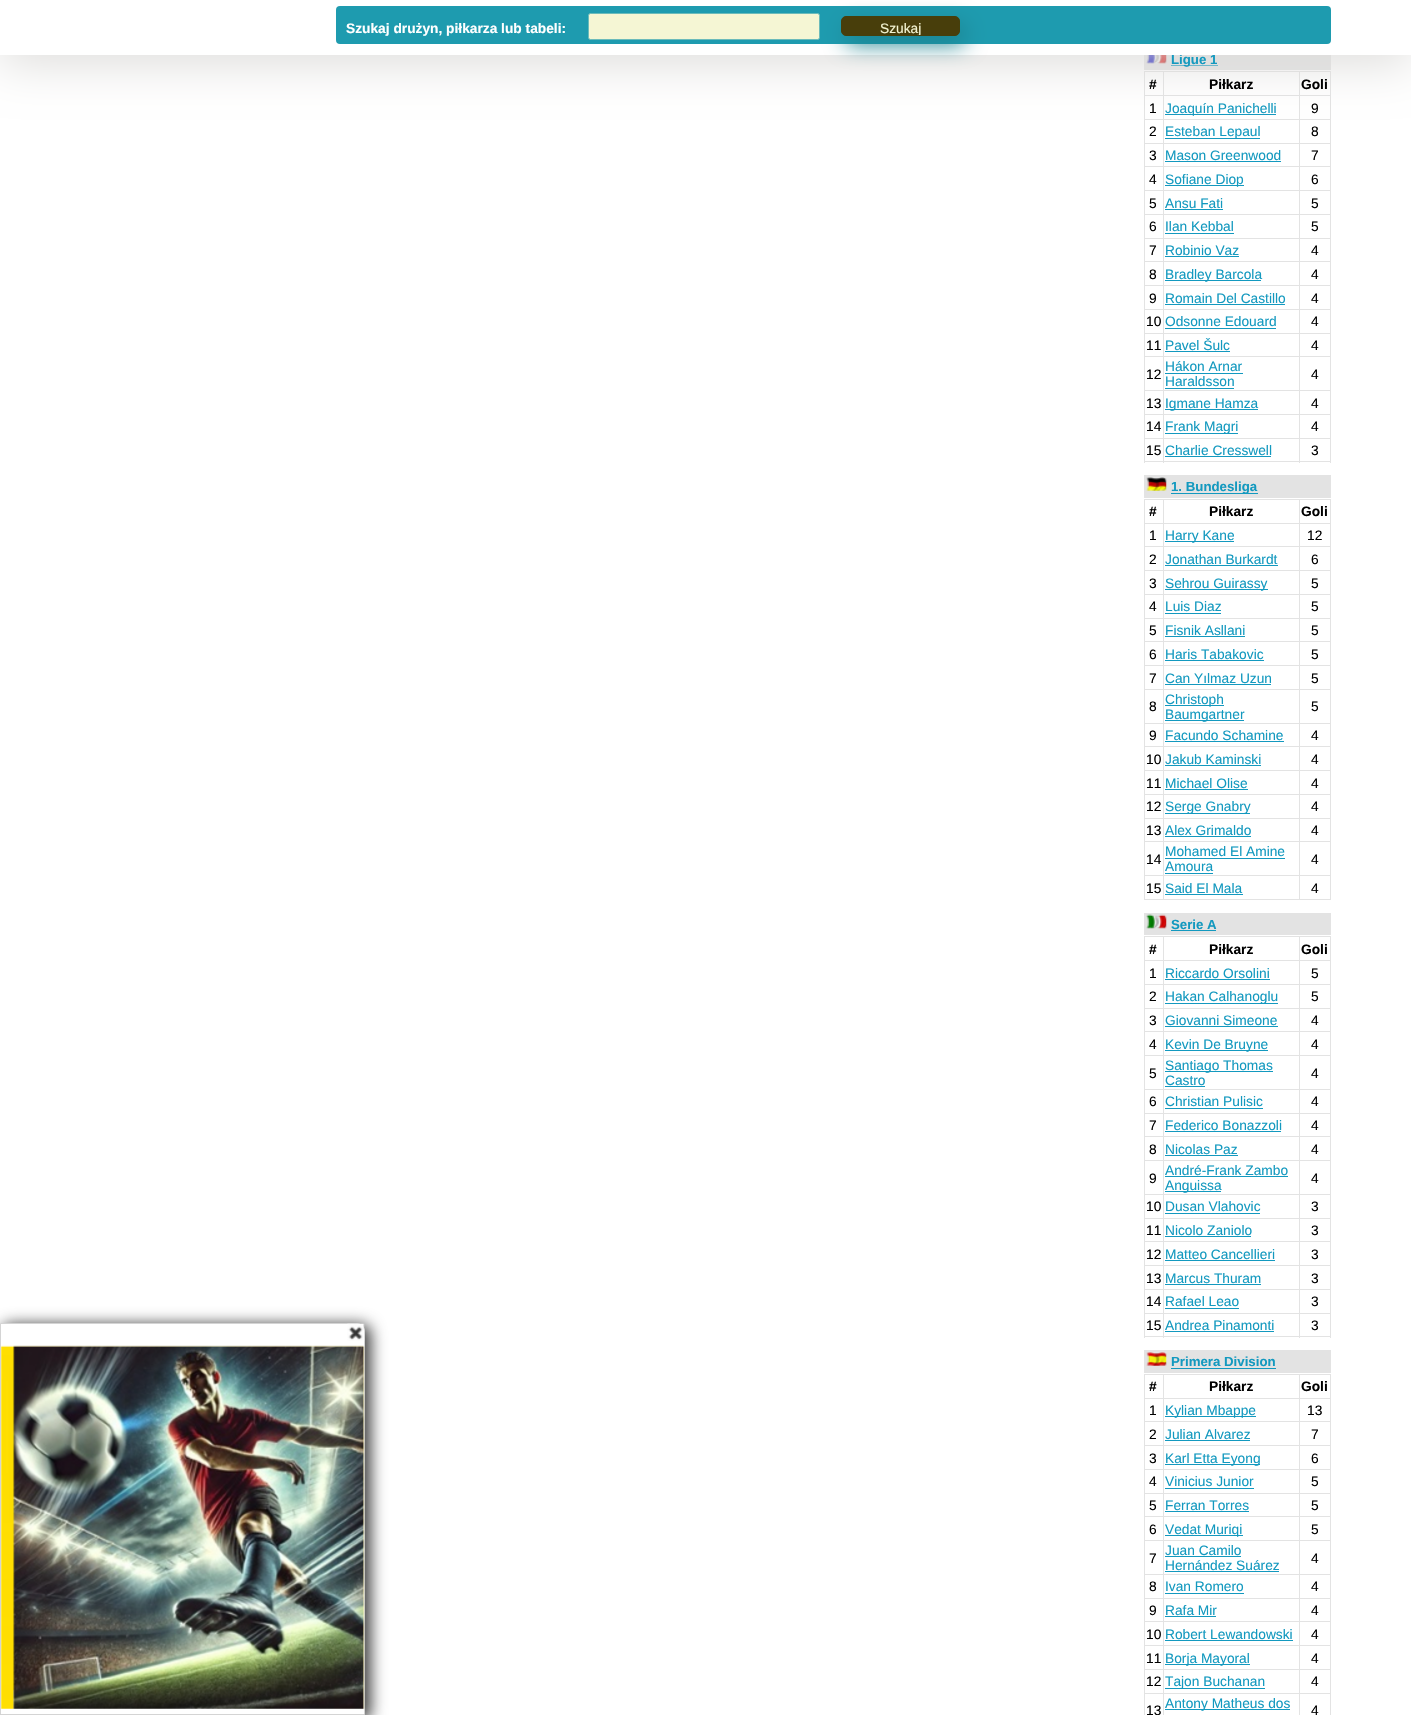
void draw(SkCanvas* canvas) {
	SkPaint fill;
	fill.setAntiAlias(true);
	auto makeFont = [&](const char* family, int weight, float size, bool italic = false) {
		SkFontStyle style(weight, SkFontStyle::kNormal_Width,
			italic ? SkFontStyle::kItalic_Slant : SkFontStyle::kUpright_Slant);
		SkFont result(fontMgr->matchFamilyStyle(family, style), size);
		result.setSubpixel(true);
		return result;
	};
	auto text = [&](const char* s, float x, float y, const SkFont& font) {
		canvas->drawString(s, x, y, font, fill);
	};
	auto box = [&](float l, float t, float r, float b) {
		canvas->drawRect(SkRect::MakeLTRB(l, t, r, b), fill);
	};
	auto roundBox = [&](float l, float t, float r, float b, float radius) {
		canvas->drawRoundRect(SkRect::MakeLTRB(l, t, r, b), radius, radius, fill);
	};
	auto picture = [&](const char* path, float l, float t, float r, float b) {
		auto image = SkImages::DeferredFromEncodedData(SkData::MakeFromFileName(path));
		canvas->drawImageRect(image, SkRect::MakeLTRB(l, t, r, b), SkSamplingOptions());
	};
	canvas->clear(0xFFFFFFFF);
	fill.setColor(0xFFE3E3E3);
	box(1144, 55, 1331, 70);
	picture("image2.png", 1146, 55, 1167, 64);
	fill.setColor(0xFF1399BF);
	box(1171, 65, 1218, 66);
	fill.setColor(0xFFE3E3E3);
	box(1144, 71, 1331, 72);
	box(1330, 71, 1331, 463);
	box(1144, 461, 1331, 462);
	box(1144, 71, 1145, 463);
	box(1299, 95, 1331, 96);
	box(1299, 119, 1331, 120);
	box(1299, 143, 1331, 144);
	box(1299, 166, 1331, 167);
	box(1299, 190, 1331, 191);
	box(1299, 214, 1331, 215);
	box(1299, 238, 1331, 239);
	box(1299, 261, 1331, 262);
	box(1299, 285, 1331, 286);
	box(1299, 309, 1331, 310);
	box(1299, 333, 1331, 334);
	box(1299, 356, 1331, 357);
	box(1299, 390, 1331, 391);
	box(1299, 414, 1331, 415);
	box(1299, 438, 1331, 439);
	box(1299, 438, 1300, 463);
	box(1163, 438, 1300, 439);
	box(1299, 414, 1300, 439);
	box(1163, 414, 1300, 415);
	box(1299, 390, 1300, 415);
	box(1163, 390, 1300, 391);
	box(1299, 356, 1300, 391);
	box(1163, 356, 1300, 357);
	box(1299, 333, 1300, 358);
	box(1163, 333, 1300, 334);
	box(1299, 309, 1300, 334);
	box(1163, 309, 1300, 310);
	box(1299, 285, 1300, 310);
	box(1163, 285, 1300, 286);
	box(1299, 261, 1300, 286);
	box(1163, 261, 1300, 262);
	box(1299, 238, 1300, 263);
	box(1163, 238, 1300, 239);
	box(1299, 214, 1300, 239);
	box(1163, 214, 1300, 215);
	box(1299, 190, 1300, 215);
	box(1163, 190, 1300, 191);
	box(1299, 166, 1300, 191);
	box(1163, 166, 1300, 167);
	box(1299, 143, 1300, 168);
	box(1163, 143, 1300, 144);
	box(1299, 119, 1300, 144);
	box(1163, 119, 1300, 120);
	box(1299, 95, 1300, 120);
	box(1163, 95, 1300, 96);
	box(1163, 438, 1164, 463);
	box(1144, 438, 1164, 439);
	box(1163, 414, 1164, 439);
	box(1144, 414, 1164, 415);
	box(1163, 390, 1164, 415);
	box(1144, 390, 1164, 391);
	box(1163, 356, 1164, 391);
	box(1144, 356, 1164, 357);
	box(1163, 333, 1164, 358);
	box(1144, 333, 1164, 334);
	box(1163, 309, 1164, 334);
	box(1144, 309, 1164, 310);
	box(1163, 285, 1164, 310);
	box(1144, 285, 1164, 286);
	box(1163, 261, 1164, 286);
	box(1144, 261, 1164, 262);
	box(1163, 238, 1164, 263);
	box(1144, 238, 1164, 239);
	box(1163, 214, 1164, 239);
	box(1144, 214, 1164, 215);
	box(1163, 190, 1164, 215);
	box(1144, 190, 1164, 191);
	box(1163, 166, 1164, 191);
	box(1144, 166, 1164, 167);
	box(1163, 143, 1164, 168);
	box(1144, 143, 1164, 144);
	box(1163, 119, 1164, 144);
	box(1144, 119, 1164, 120);
	box(1163, 95, 1164, 120);
	box(1144, 95, 1164, 96);
	box(1163, 71, 1164, 96);
	box(1299, 71, 1300, 96);
	fill.setColor(0xFF1399BF);
	box(1165, 114, 1276, 115);
	fill.setColor(0xFFDDDCDA);
	fill.setMaskFilter(SkMaskFilter::MakeBlur(kNormal_SkBlurStyle, 24));
	canvas->drawRect(SkRect::MakeLTRB(0, 8, 1411, 63), fill);
	fill.setMaskFilter(nullptr);
	fill.setColor(0xBF000000);
	fill.setMaskFilter(SkMaskFilter::MakeBlur(kNormal_SkBlurStyle, 7.5f));
	canvas->drawRoundRect(SkRect::MakeLTRB(1, 1324, 371, 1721), 10, 10, fill);
	fill.setMaskFilter(nullptr);
	fill.setColor(0xFFFFFFFF);
	canvas->drawPath(SkPathBuilder().moveTo(0.5f, 1323.5f).lineTo(357, 1323.5f).cubicTo(361, 1323.5f, 364.5f, 1327, 364.5f, 1331).lineTo(364.5f, 1714.5f).lineTo(0.5f, 1714.5f).close().detach(), fill);
	fill.setStyle(SkPaint::kStroke_Style);
	fill.setStrokeWidth(1);
	fill.setColor(0xFFD4D4D4);
	canvas->drawPath(SkPathBuilder().moveTo(0.5f, 1323.5f).lineTo(357, 1323.5f).cubicTo(361, 1323.5f, 364.5f, 1327, 364.5f, 1331).lineTo(364.5f, 1714.5f).lineTo(0.5f, 1714.5f).close().detach(), fill);
	picture("image0.png", 347, 1323, 365, 1341);
	picture("image1.png", 1, 1345, 365, 1709);
	fill.setStyle(SkPaint::kFill_Style);
	fill.setColor(0xFF1399BF);
	box(1165, 138, 1260, 139);
	box(1165, 161, 1281, 162);
	box(1165, 185, 1244, 186);
	box(1165, 209, 1223, 210);
	box(1165, 233, 1234, 234);
	box(1165, 256, 1239, 257);
	box(1165, 280, 1261, 281);
	box(1165, 304, 1285, 305);
	box(1165, 328, 1276, 329);
	box(1165, 351, 1230, 352);
	box(1165, 373, 1243, 374);
	box(1165, 388, 1234, 389);
	box(1165, 409, 1258, 410);
	box(1165, 433, 1238, 434);
	box(1165, 456, 1271, 457);
	fill.setColor(0xFFE3E3E3);
	box(1144, 475, 1331, 498);
	picture("image3.png", 1146, 477, 1167, 491);
	fill.setColor(0xFF1399BF);
	box(1171, 493, 1258, 494);
	fill.setColor(0xFFE3E3E3);
	box(1144, 499, 1331, 500);
	box(1330, 499, 1331, 900);
	box(1144, 899, 1331, 900);
	box(1144, 499, 1145, 900);
	box(1299, 523, 1331, 524);
	box(1299, 546, 1331, 547);
	box(1299, 570, 1331, 571);
	box(1299, 594, 1331, 595);
	box(1299, 618, 1331, 619);
	box(1299, 641, 1331, 642);
	box(1299, 665, 1331, 666);
	box(1299, 689, 1331, 690);
	box(1299, 723, 1331, 724);
	box(1299, 746, 1331, 747);
	box(1299, 770, 1331, 771);
	box(1299, 794, 1331, 795);
	box(1299, 818, 1331, 819);
	box(1299, 841, 1331, 842);
	box(1299, 875, 1331, 876);
	box(1299, 875, 1300, 900);
	box(1163, 875, 1300, 876);
	box(1299, 841, 1300, 876);
	box(1163, 841, 1300, 842);
	box(1299, 818, 1300, 843);
	box(1163, 818, 1300, 819);
	box(1299, 794, 1300, 819);
	box(1163, 794, 1300, 795);
	box(1299, 770, 1300, 795);
	box(1163, 770, 1300, 771);
	box(1299, 746, 1300, 771);
	box(1163, 746, 1300, 747);
	box(1299, 723, 1300, 748);
	box(1163, 723, 1300, 724);
	box(1299, 689, 1300, 724);
	box(1163, 689, 1300, 690);
	box(1299, 665, 1300, 690);
	box(1163, 665, 1300, 666);
	box(1299, 641, 1300, 666);
	box(1163, 641, 1300, 642);
	box(1299, 618, 1300, 643);
	box(1163, 618, 1300, 619);
	box(1299, 594, 1300, 619);
	box(1163, 594, 1300, 595);
	box(1299, 570, 1300, 595);
	box(1163, 570, 1300, 571);
	box(1299, 546, 1300, 571);
	box(1163, 546, 1300, 547);
	box(1299, 523, 1300, 548);
	box(1163, 523, 1300, 524);
	box(1163, 875, 1164, 900);
	box(1144, 875, 1164, 876);
	box(1163, 841, 1164, 876);
	box(1144, 841, 1164, 842);
	box(1163, 818, 1164, 843);
	box(1144, 818, 1164, 819);
	box(1163, 794, 1164, 819);
	box(1144, 794, 1164, 795);
	box(1163, 770, 1164, 795);
	box(1144, 770, 1164, 771);
	box(1163, 746, 1164, 771);
	box(1144, 746, 1164, 747);
	box(1163, 723, 1164, 748);
	box(1144, 723, 1164, 724);
	box(1163, 689, 1164, 724);
	box(1144, 689, 1164, 690);
	box(1163, 665, 1164, 690);
	box(1144, 665, 1164, 666);
	box(1163, 641, 1164, 666);
	box(1144, 641, 1164, 642);
	box(1163, 618, 1164, 643);
	box(1144, 618, 1164, 619);
	box(1163, 594, 1164, 619);
	box(1144, 594, 1164, 595);
	box(1163, 570, 1164, 595);
	box(1144, 570, 1164, 571);
	box(1163, 546, 1164, 571);
	box(1144, 546, 1164, 547);
	box(1163, 523, 1164, 548);
	box(1144, 523, 1164, 524);
	box(1163, 499, 1164, 524);
	box(1299, 499, 1300, 524);
	fill.setColor(0xFF1399BF);
	box(1165, 541, 1234, 542);
	box(1165, 565, 1278, 566);
	box(1165, 589, 1268, 590);
	box(1165, 613, 1221, 614);
	box(1165, 636, 1245, 637);
	box(1165, 660, 1264, 661);
	box(1165, 684, 1271, 685);
	box(1165, 705, 1224, 706);
	box(1165, 720, 1244, 721);
	box(1165, 741, 1284, 742);
	box(1165, 765, 1261, 766);
	box(1165, 789, 1248, 790);
	box(1165, 813, 1250, 814);
	box(1165, 836, 1251, 837);
	box(1165, 858, 1285, 859);
	box(1165, 873, 1213, 874);
	box(1165, 894, 1243, 895);
	fill.setColor(0xFFE3E3E3);
	box(1144, 913, 1331, 935);
	picture("image4.png", 1146, 914, 1167, 929);
	fill.setColor(0xFF1399BF);
	box(1171, 930, 1216, 931);
	fill.setColor(0xFFE3E3E3);
	box(1144, 936, 1331, 937);
	box(1330, 936, 1331, 1338);
	box(1144, 1336, 1331, 1337);
	box(1144, 936, 1145, 1338);
	box(1299, 960, 1331, 961);
	box(1299, 984, 1331, 985);
	box(1299, 1008, 1331, 1009);
	box(1299, 1031, 1331, 1032);
	box(1299, 1055, 1331, 1056);
	box(1299, 1089, 1331, 1090);
	box(1299, 1113, 1331, 1114);
	box(1299, 1136, 1331, 1137);
	box(1299, 1160, 1331, 1161);
	box(1299, 1194, 1331, 1195);
	box(1299, 1218, 1331, 1219);
	box(1299, 1241, 1331, 1242);
	box(1299, 1265, 1331, 1266);
	box(1299, 1289, 1331, 1290);
	box(1299, 1313, 1331, 1314);
	box(1299, 1313, 1300, 1338);
	box(1163, 1313, 1300, 1314);
	box(1299, 1289, 1300, 1314);
	box(1163, 1289, 1300, 1290);
	box(1299, 1265, 1300, 1290);
	box(1163, 1265, 1300, 1266);
	box(1299, 1241, 1300, 1266);
	box(1163, 1241, 1300, 1242);
	box(1299, 1218, 1300, 1243);
	box(1163, 1218, 1300, 1219);
	box(1299, 1194, 1300, 1219);
	box(1163, 1194, 1300, 1195);
	box(1299, 1160, 1300, 1195);
	box(1163, 1160, 1300, 1161);
	box(1299, 1136, 1300, 1161);
	box(1163, 1136, 1300, 1137);
	box(1299, 1113, 1300, 1138);
	box(1163, 1113, 1300, 1114);
	box(1299, 1089, 1300, 1114);
	box(1163, 1089, 1300, 1090);
	box(1299, 1055, 1300, 1090);
	box(1163, 1055, 1300, 1056);
	box(1299, 1031, 1300, 1056);
	box(1163, 1031, 1300, 1032);
	box(1299, 1008, 1300, 1033);
	box(1163, 1008, 1300, 1009);
	box(1299, 984, 1300, 1009);
	box(1163, 984, 1300, 985);
	box(1299, 960, 1300, 985);
	box(1163, 960, 1300, 961);
	box(1163, 1313, 1164, 1338);
	box(1144, 1313, 1164, 1314);
	box(1163, 1289, 1164, 1314);
	box(1144, 1289, 1164, 1290);
	box(1163, 1265, 1164, 1290);
	box(1144, 1265, 1164, 1266);
	box(1163, 1241, 1164, 1266);
	box(1144, 1241, 1164, 1242);
	box(1163, 1218, 1164, 1243);
	box(1144, 1218, 1164, 1219);
	box(1163, 1194, 1164, 1219);
	box(1144, 1194, 1164, 1195);
	box(1163, 1160, 1164, 1195);
	box(1144, 1160, 1164, 1161);
	box(1163, 1136, 1164, 1161);
	box(1144, 1136, 1164, 1137);
	box(1163, 1113, 1164, 1138);
	box(1144, 1113, 1164, 1114);
	box(1163, 1089, 1164, 1114);
	box(1144, 1089, 1164, 1090);
	box(1163, 1055, 1164, 1090);
	box(1144, 1055, 1164, 1056);
	box(1163, 1031, 1164, 1056);
	box(1144, 1031, 1164, 1032);
	box(1163, 1008, 1164, 1033);
	box(1144, 1008, 1164, 1009);
	box(1163, 984, 1164, 1009);
	box(1144, 984, 1164, 985);
	box(1163, 960, 1164, 985);
	box(1144, 960, 1164, 961);
	box(1163, 936, 1164, 961);
	box(1299, 936, 1300, 961);
	fill.setColor(0xFF1399BF);
	box(1165, 979, 1270, 980);
	box(1165, 1003, 1278, 1004);
	box(1165, 1026, 1278, 1027);
	box(1165, 1050, 1268, 1051);
	box(1165, 1071, 1273, 1072);
	box(1165, 1086, 1205, 1087);
	box(1165, 1108, 1263, 1109);
	box(1165, 1131, 1281, 1132);
	box(1165, 1155, 1238, 1156);
	box(1165, 1176, 1288, 1177);
	box(1165, 1191, 1221, 1192);
	box(1165, 1213, 1260, 1214);
	box(1165, 1236, 1251, 1237);
	box(1165, 1260, 1275, 1261);
	box(1165, 1284, 1261, 1285);
	box(1165, 1308, 1239, 1309);
	box(1165, 1331, 1274, 1332);
	fill.setColor(0xFFE3E3E3);
	box(1144, 1350, 1331, 1373);
	picture("image5.png", 1146, 1352, 1167, 1366);
	fill.setColor(0xFF1399BF);
	box(1171, 1368, 1276, 1369);
	fill.setColor(0xFFE3E3E3);
	box(1144, 1374, 1331, 1375);
	box(1330, 1374, 1331, 1715);
	box(1144, 1374, 1145, 1715);
	box(1299, 1398, 1331, 1399);
	box(1299, 1421, 1331, 1422);
	box(1299, 1445, 1331, 1446);
	box(1299, 1469, 1331, 1470);
	box(1299, 1493, 1331, 1494);
	box(1299, 1516, 1331, 1517);
	box(1299, 1540, 1331, 1541);
	box(1299, 1574, 1331, 1575);
	box(1299, 1598, 1331, 1599);
	box(1299, 1621, 1331, 1622);
	box(1299, 1645, 1331, 1646);
	box(1299, 1669, 1331, 1670);
	box(1299, 1693, 1331, 1694);
	box(1299, 1693, 1300, 1715);
	box(1163, 1693, 1300, 1694);
	box(1299, 1669, 1300, 1694);
	box(1163, 1669, 1300, 1670);
	box(1299, 1645, 1300, 1670);
	box(1163, 1645, 1300, 1646);
	box(1299, 1621, 1300, 1646);
	box(1163, 1621, 1300, 1622);
	box(1299, 1598, 1300, 1623);
	box(1163, 1598, 1300, 1599);
	box(1299, 1574, 1300, 1599);
	box(1163, 1574, 1300, 1575);
	box(1299, 1540, 1300, 1575);
	box(1163, 1540, 1300, 1541);
	box(1299, 1516, 1300, 1541);
	box(1163, 1516, 1300, 1517);
	box(1299, 1493, 1300, 1518);
	box(1163, 1493, 1300, 1494);
	box(1299, 1469, 1300, 1494);
	box(1163, 1469, 1300, 1470);
	box(1299, 1445, 1300, 1470);
	box(1163, 1445, 1300, 1446);
	box(1299, 1421, 1300, 1446);
	box(1163, 1421, 1300, 1422);
	box(1299, 1398, 1300, 1423);
	box(1163, 1398, 1300, 1399);
	box(1163, 1693, 1164, 1715);
	box(1144, 1693, 1164, 1694);
	box(1163, 1669, 1164, 1694);
	box(1144, 1669, 1164, 1670);
	box(1163, 1645, 1164, 1670);
	box(1144, 1645, 1164, 1646);
	box(1163, 1621, 1164, 1646);
	box(1144, 1621, 1164, 1622);
	box(1163, 1598, 1164, 1623);
	box(1144, 1598, 1164, 1599);
	box(1163, 1574, 1164, 1599);
	box(1144, 1574, 1164, 1575);
	box(1163, 1540, 1164, 1575);
	box(1144, 1540, 1164, 1541);
	box(1163, 1516, 1164, 1541);
	box(1144, 1516, 1164, 1517);
	box(1163, 1493, 1164, 1518);
	box(1144, 1493, 1164, 1494);
	box(1163, 1469, 1164, 1494);
	box(1144, 1469, 1164, 1470);
	box(1163, 1445, 1164, 1470);
	box(1144, 1445, 1164, 1446);
	box(1163, 1421, 1164, 1446);
	box(1144, 1421, 1164, 1422);
	box(1163, 1398, 1164, 1423);
	box(1144, 1398, 1164, 1399);
	box(1163, 1374, 1164, 1399);
	box(1299, 1374, 1300, 1399);
	fill.setColor(0xFF1399BF);
	box(1165, 1416, 1256, 1417);
	box(1165, 1440, 1250, 1441);
	box(1165, 1464, 1260, 1465);
	box(1165, 1488, 1254, 1489);
	box(1165, 1511, 1249, 1512);
	box(1165, 1535, 1243, 1536);
	box(1165, 1556, 1241, 1557);
	box(1165, 1571, 1279, 1572);
	box(1165, 1593, 1244, 1594);
	box(1165, 1616, 1216, 1617);
	box(1165, 1640, 1293, 1641);
	box(1165, 1664, 1250, 1665);
	box(1165, 1688, 1265, 1689);
	box(1165, 1709, 1290, 1710);
	auto font1 = makeFont("Liberation Sans", 700, 13.25f);
	text("Ligue 1", 1171, 64, font1);
	fill.setColor(0xFFFFFFFF);
	box(0, 0, 1411, 55);
	fill.setColor(0xFF1E9BAF);
	roundBox(336, 6, 1331, 44, 4);
	fill.setColor(0xFFF5F6D4);
	canvas->drawRoundRect(SkRect::MakeLTRB(588.5f, 13.5f, 819.5f, 39.5f), 2, 2, fill);
	fill.setStyle(SkPaint::kStroke_Style);
	fill.setColor(0xFF6BBBBA);
	canvas->drawRoundRect(SkRect::MakeLTRB(588.5f, 13.5f, 819.5f, 39.5f), 2, 2, fill);
	fill.setStyle(SkPaint::kFill_Style);
	fill.setColor(0xFF1A828F);
	fill.setMaskFilter(SkMaskFilter::MakeBlur(kNormal_SkBlurStyle, 11));
	canvas->drawRoundRect(SkRect::MakeLTRB(846, 24, 965, 44), 5, 5, fill);
	fill.setMaskFilter(nullptr);
	fill.setColor(0xFF483E0B);
	canvas->drawRoundRect(SkRect::MakeLTRB(841.5f, 16.5f, 959.5f, 35.5f), 4.5f, 4.5f, fill);
	fill.setStyle(SkPaint::kStroke_Style);
	fill.setColor(0xFF463F0B);
	canvas->drawRoundRect(SkRect::MakeLTRB(841.5f, 16.5f, 959.5f, 35.5f), 4.5f, 4.5f, fill);
	canvas->save();
	canvas->clipPath(SkPathBuilder().moveTo(847, 18).lineTo(955, 18).cubicTo(957, 18, 959, 20, 959, 22).lineTo(959, 31).cubicTo(959, 33, 957, 35, 955, 35).lineTo(847, 35).cubicTo(845, 35, 843, 33, 843, 31).lineTo(843, 22).cubicTo(843, 20, 845, 18, 847, 18).close().detach(), true);
	auto font2 = makeFont("Liberation Sans", 400, 13.75f);
	fill.setStyle(SkPaint::kFill_Style);
	fill.setColor(0xFFF4F4D2);
	text("Szukaj", 880, 33, font2);
	canvas->restore();
	auto font3 = makeFont("Liberation Sans", 700, 13.75f);
	fill.setColor(0xFFFFFFFF);
	text("Szukaj drużyn, piłkarza lub tabeli:", 346, 33, font3);
	fill.setColor(0xFF000000);
	text("#", 1149, 89, font3);
	text("Piłkarz", 1209, 89, font3);
	text("Goli", 1301, 89, font3);
	text("1", 1149, 113, font2);
	fill.setColor(0xFF1399BF);
	text("Joaquín Panichelli", 1165, 113, font2);
	fill.setColor(0xFF000000);
	text("9", 1311, 113, font2);
	text("2", 1149, 136, font2);
	fill.setColor(0xFF1399BF);
	text("Esteban Lepaul", 1165, 136, font2);
	fill.setColor(0xFF000000);
	text("8", 1311, 136, font2);
	text("3", 1149, 160, font2);
	fill.setColor(0xFF1399BF);
	text("Mason Greenwood", 1165, 160, font2);
	fill.setColor(0xFF000000);
	text("7", 1311, 160, font2);
	text("4", 1149, 184, font2);
	fill.setColor(0xFF1399BF);
	text("Sofiane Diop", 1165, 184, font2);
	fill.setColor(0xFF000000);
	text("6", 1311, 184, font2);
	text("5", 1149, 208, font2);
	fill.setColor(0xFF1399BF);
	text("Ansu Fati", 1165, 208, font2);
	fill.setColor(0xFF000000);
	text("5", 1311, 208, font2);
	text("6", 1149, 231, font2);
	fill.setColor(0xFF1399BF);
	text("Ilan Kebbal", 1165, 231, font2);
	fill.setColor(0xFF000000);
	text("5", 1311, 231, font2);
	text("7", 1149, 255, font2);
	fill.setColor(0xFF1399BF);
	text("Robinio Vaz", 1165, 255, font2);
	fill.setColor(0xFF000000);
	text("4", 1311, 255, font2);
	text("8", 1149, 279, font2);
	fill.setColor(0xFF1399BF);
	text("Bradley Barcola", 1165, 279, font2);
	fill.setColor(0xFF000000);
	text("4", 1311, 279, font2);
	text("9", 1149, 303, font2);
	fill.setColor(0xFF1399BF);
	text("Romain Del Castillo", 1165, 303, font2);
	fill.setColor(0xFF000000);
	text("4", 1311, 303, font2);
	text("10", 1146, 326, font2);
	fill.setColor(0xFF1399BF);
	text("Odsonne Edouard", 1165, 326, font2);
	fill.setColor(0xFF000000);
	text("4", 1311, 326, font2);
	text("11", 1146, 350, font2);
	fill.setColor(0xFF1399BF);
	text("Pavel Šulc", 1165, 350, font2);
	fill.setColor(0xFF000000);
	text("4", 1311, 350, font2);
	text("12", 1146, 379, font2);
	fill.setColor(0xFF1399BF);
	text("Hákon Arnar", 1165, 371, font2);
	text("Haraldsson", 1165, 386, font2);
	fill.setColor(0xFF000000);
	text("4", 1311, 379, font2);
	text("13", 1146, 408, font2);
	fill.setColor(0xFF1399BF);
	text("Igmane Hamza", 1165, 408, font2);
	fill.setColor(0xFF000000);
	text("4", 1311, 408, font2);
	text("14", 1146, 431, font2);
	fill.setColor(0xFF1399BF);
	text("Frank Magri", 1165, 431, font2);
	fill.setColor(0xFF000000);
	text("4", 1311, 431, font2);
	text("15", 1146, 455, font2);
	fill.setColor(0xFF1399BF);
	text("Charlie Cresswell", 1165, 455, font2);
	fill.setColor(0xFF000000);
	text("3", 1311, 455, font2);
	fill.setColor(0xFF1399BF);
	text("1. Bundesliga", 1171, 491, font1);
	fill.setColor(0xFF000000);
	text("#", 1149, 516, font3);
	text("Piłkarz", 1209, 516, font3);
	text("Goli", 1301, 516, font3);
	text("1", 1149, 540, font2);
	fill.setColor(0xFF1399BF);
	text("Harry Kane", 1165, 540, font2);
	fill.setColor(0xFF000000);
	text("12", 1307, 540, font2);
	text("2", 1149, 564, font2);
	fill.setColor(0xFF1399BF);
	text("Jonathan Burkardt", 1165, 564, font2);
	fill.setColor(0xFF000000);
	text("6", 1311, 564, font2);
	text("3", 1149, 588, font2);
	fill.setColor(0xFF1399BF);
	text("Sehrou Guirassy", 1165, 588, font2);
	fill.setColor(0xFF000000);
	text("5", 1311, 588, font2);
	text("4", 1149, 611, font2);
	fill.setColor(0xFF1399BF);
	text("Luis Diaz", 1165, 611, font2);
	fill.setColor(0xFF000000);
	text("5", 1311, 611, font2);
	text("5", 1149, 635, font2);
	fill.setColor(0xFF1399BF);
	text("Fisnik Asllani", 1165, 635, font2);
	fill.setColor(0xFF000000);
	text("5", 1311, 635, font2);
	text("6", 1149, 659, font2);
	fill.setColor(0xFF1399BF);
	text("Haris Tabakovic", 1165, 659, font2);
	fill.setColor(0xFF000000);
	text("5", 1311, 659, font2);
	text("7", 1149, 683, font2);
	fill.setColor(0xFF1399BF);
	text("Can Yılmaz Uzun", 1165, 683, font2);
	fill.setColor(0xFF000000);
	text("5", 1311, 683, font2);
	text("8", 1149, 711, font2);
	fill.setColor(0xFF1399BF);
	text("Christoph", 1165, 704, font2);
	text("Baumgartner", 1165, 719, font2);
	fill.setColor(0xFF000000);
	text("5", 1311, 711, font2);
	text("9", 1149, 740, font2);
	fill.setColor(0xFF1399BF);
	text("Facundo Schamine", 1165, 740, font2);
	fill.setColor(0xFF000000);
	text("4", 1311, 740, font2);
	text("10", 1146, 764, font2);
	fill.setColor(0xFF1399BF);
	text("Jakub Kaminski", 1165, 764, font2);
	fill.setColor(0xFF000000);
	text("4", 1311, 764, font2);
	text("11", 1146, 788, font2);
	fill.setColor(0xFF1399BF);
	text("Michael Olise", 1165, 788, font2);
	fill.setColor(0xFF000000);
	text("4", 1311, 788, font2);
	text("12", 1146, 811, font2);
	fill.setColor(0xFF1399BF);
	text("Serge Gnabry", 1165, 811, font2);
	fill.setColor(0xFF000000);
	text("4", 1311, 811, font2);
	text("13", 1146, 835, font2);
	fill.setColor(0xFF1399BF);
	text("Alex Grimaldo", 1165, 835, font2);
	fill.setColor(0xFF000000);
	text("4", 1311, 835, font2);
	text("14", 1146, 864, font2);
	fill.setColor(0xFF1399BF);
	text("Mohamed El Amine", 1165, 856, font2);
	text("Amoura", 1165, 871, font2);
	fill.setColor(0xFF000000);
	text("4", 1311, 864, font2);
	text("15", 1146, 893, font2);
	fill.setColor(0xFF1399BF);
	text("Said El Mala", 1165, 893, font2);
	fill.setColor(0xFF000000);
	text("4", 1311, 893, font2);
	fill.setColor(0xFF1399BF);
	text("Serie A", 1171, 929, font1);
	fill.setColor(0xFF000000);
	text("#", 1149, 954, font3);
	text("Piłkarz", 1209, 954, font3);
	text("Goli", 1301, 954, font3);
	text("1", 1149, 978, font2);
	fill.setColor(0xFF1399BF);
	text("Riccardo Orsolini", 1165, 978, font2);
	fill.setColor(0xFF000000);
	text("5", 1311, 978, font2);
	text("2", 1149, 1001, font2);
	fill.setColor(0xFF1399BF);
	text("Hakan Calhanoglu", 1165, 1001, font2);
	fill.setColor(0xFF000000);
	text("5", 1311, 1001, font2);
	text("3", 1149, 1025, font2);
	fill.setColor(0xFF1399BF);
	text("Giovanni Simeone", 1165, 1025, font2);
	fill.setColor(0xFF000000);
	text("4", 1311, 1025, font2);
	text("4", 1149, 1049, font2);
	fill.setColor(0xFF1399BF);
	text("Kevin De Bruyne", 1165, 1049, font2);
	fill.setColor(0xFF000000);
	text("4", 1311, 1049, font2);
	text("5", 1149, 1078, font2);
	fill.setColor(0xFF1399BF);
	text("Santiago Thomas", 1165, 1070, font2);
	text("Castro", 1165, 1085, font2);
	fill.setColor(0xFF000000);
	text("4", 1311, 1078, font2);
	text("6", 1149, 1106, font2);
	fill.setColor(0xFF1399BF);
	text("Christian Pulisic", 1165, 1106, font2);
	fill.setColor(0xFF000000);
	text("4", 1311, 1106, font2);
	text("7", 1149, 1130, font2);
	fill.setColor(0xFF1399BF);
	text("Federico Bonazzoli", 1165, 1130, font2);
	fill.setColor(0xFF000000);
	text("4", 1311, 1130, font2);
	text("8", 1149, 1154, font2);
	fill.setColor(0xFF1399BF);
	text("Nicolas Paz", 1165, 1154, font2);
	fill.setColor(0xFF000000);
	text("4", 1311, 1154, font2);
	text("9", 1149, 1183, font2);
	fill.setColor(0xFF1399BF);
	text("André-Frank Zambo", 1165, 1175, font2);
	text("Anguissa", 1165, 1190, font2);
	fill.setColor(0xFF000000);
	text("4", 1311, 1183, font2);
	text("10", 1146, 1211, font2);
	fill.setColor(0xFF1399BF);
	text("Dusan Vlahovic", 1165, 1211, font2);
	fill.setColor(0xFF000000);
	text("3", 1311, 1211, font2);
	text("11", 1146, 1235, font2);
	fill.setColor(0xFF1399BF);
	text("Nicolo Zaniolo", 1165, 1235, font2);
	fill.setColor(0xFF000000);
	text("3", 1311, 1235, font2);
	text("12", 1146, 1259, font2);
	fill.setColor(0xFF1399BF);
	text("Matteo Cancellieri", 1165, 1259, font2);
	fill.setColor(0xFF000000);
	text("3", 1311, 1259, font2);
	text("13", 1146, 1283, font2);
	fill.setColor(0xFF1399BF);
	text("Marcus Thuram", 1165, 1283, font2);
	fill.setColor(0xFF000000);
	text("3", 1311, 1283, font2);
	text("14", 1146, 1306, font2);
	fill.setColor(0xFF1399BF);
	text("Rafael Leao", 1165, 1306, font2);
	fill.setColor(0xFF000000);
	text("3", 1311, 1306, font2);
	text("15", 1146, 1330, font2);
	fill.setColor(0xFF1399BF);
	text("Andrea Pinamonti", 1165, 1330, font2);
	fill.setColor(0xFF000000);
	text("3", 1311, 1330, font2);
	fill.setColor(0xFF1399BF);
	text("Primera Division", 1171, 1366, font1);
	fill.setColor(0xFF000000);
	text("#", 1149, 1391, font3);
	text("Piłkarz", 1209, 1391, font3);
	text("Goli", 1301, 1391, font3);
	text("1", 1149, 1415, font2);
	fill.setColor(0xFF1399BF);
	text("Kylian Mbappe", 1165, 1415, font2);
	fill.setColor(0xFF000000);
	text("13", 1307, 1415, font2);
	text("2", 1149, 1439, font2);
	fill.setColor(0xFF1399BF);
	text("Julian Alvarez", 1165, 1439, font2);
	fill.setColor(0xFF000000);
	text("7", 1311, 1439, font2);
	text("3", 1149, 1463, font2);
	fill.setColor(0xFF1399BF);
	text("Karl Etta Eyong", 1165, 1463, font2);
	fill.setColor(0xFF000000);
	text("6", 1311, 1463, font2);
	text("4", 1149, 1486, font2);
	fill.setColor(0xFF1399BF);
	text("Vinicius Junior", 1165, 1486, font2);
	fill.setColor(0xFF000000);
	text("5", 1311, 1486, font2);
	text("5", 1149, 1510, font2);
	fill.setColor(0xFF1399BF);
	text("Ferran Torres", 1165, 1510, font2);
	fill.setColor(0xFF000000);
	text("5", 1311, 1510, font2);
	text("6", 1149, 1534, font2);
	fill.setColor(0xFF1399BF);
	text("Vedat Muriqi", 1165, 1534, font2);
	fill.setColor(0xFF000000);
	text("5", 1311, 1534, font2);
	text("7", 1149, 1563, font2);
	fill.setColor(0xFF1399BF);
	text("Juan Camilo", 1165, 1555, font2);
	text("Hernández Suárez", 1165, 1570, font2);
	fill.setColor(0xFF000000);
	text("4", 1311, 1563, font2);
	text("8", 1149, 1591, font2);
	fill.setColor(0xFF1399BF);
	text("Ivan Romero", 1165, 1591, font2);
	fill.setColor(0xFF000000);
	text("4", 1311, 1591, font2);
	text("9", 1149, 1615, font2);
	fill.setColor(0xFF1399BF);
	text("Rafa Mir", 1165, 1615, font2);
	fill.setColor(0xFF000000);
	text("4", 1311, 1615, font2);
	text("10", 1146, 1639, font2);
	fill.setColor(0xFF1399BF);
	text("Robert Lewandowski", 1165, 1639, font2);
	fill.setColor(0xFF000000);
	text("4", 1311, 1639, font2);
	text("11", 1146, 1663, font2);
	fill.setColor(0xFF1399BF);
	text("Borja Mayoral", 1165, 1663, font2);
	fill.setColor(0xFF000000);
	text("4", 1311, 1663, font2);
	text("12", 1146, 1686, font2);
	fill.setColor(0xFF1399BF);
	text("Tajon Buchanan", 1165, 1686, font2);
	fill.setColor(0xFF000000);
	text("4", 1311, 1686, font2);
	text("13", 1146, 1715, font2);
	fill.setColor(0xFF1399BF);
	text("Antony Matheus dos", 1165, 1708, font2);
	fill.setColor(0xFF000000);
	text("4", 1311, 1715, font2);
}
